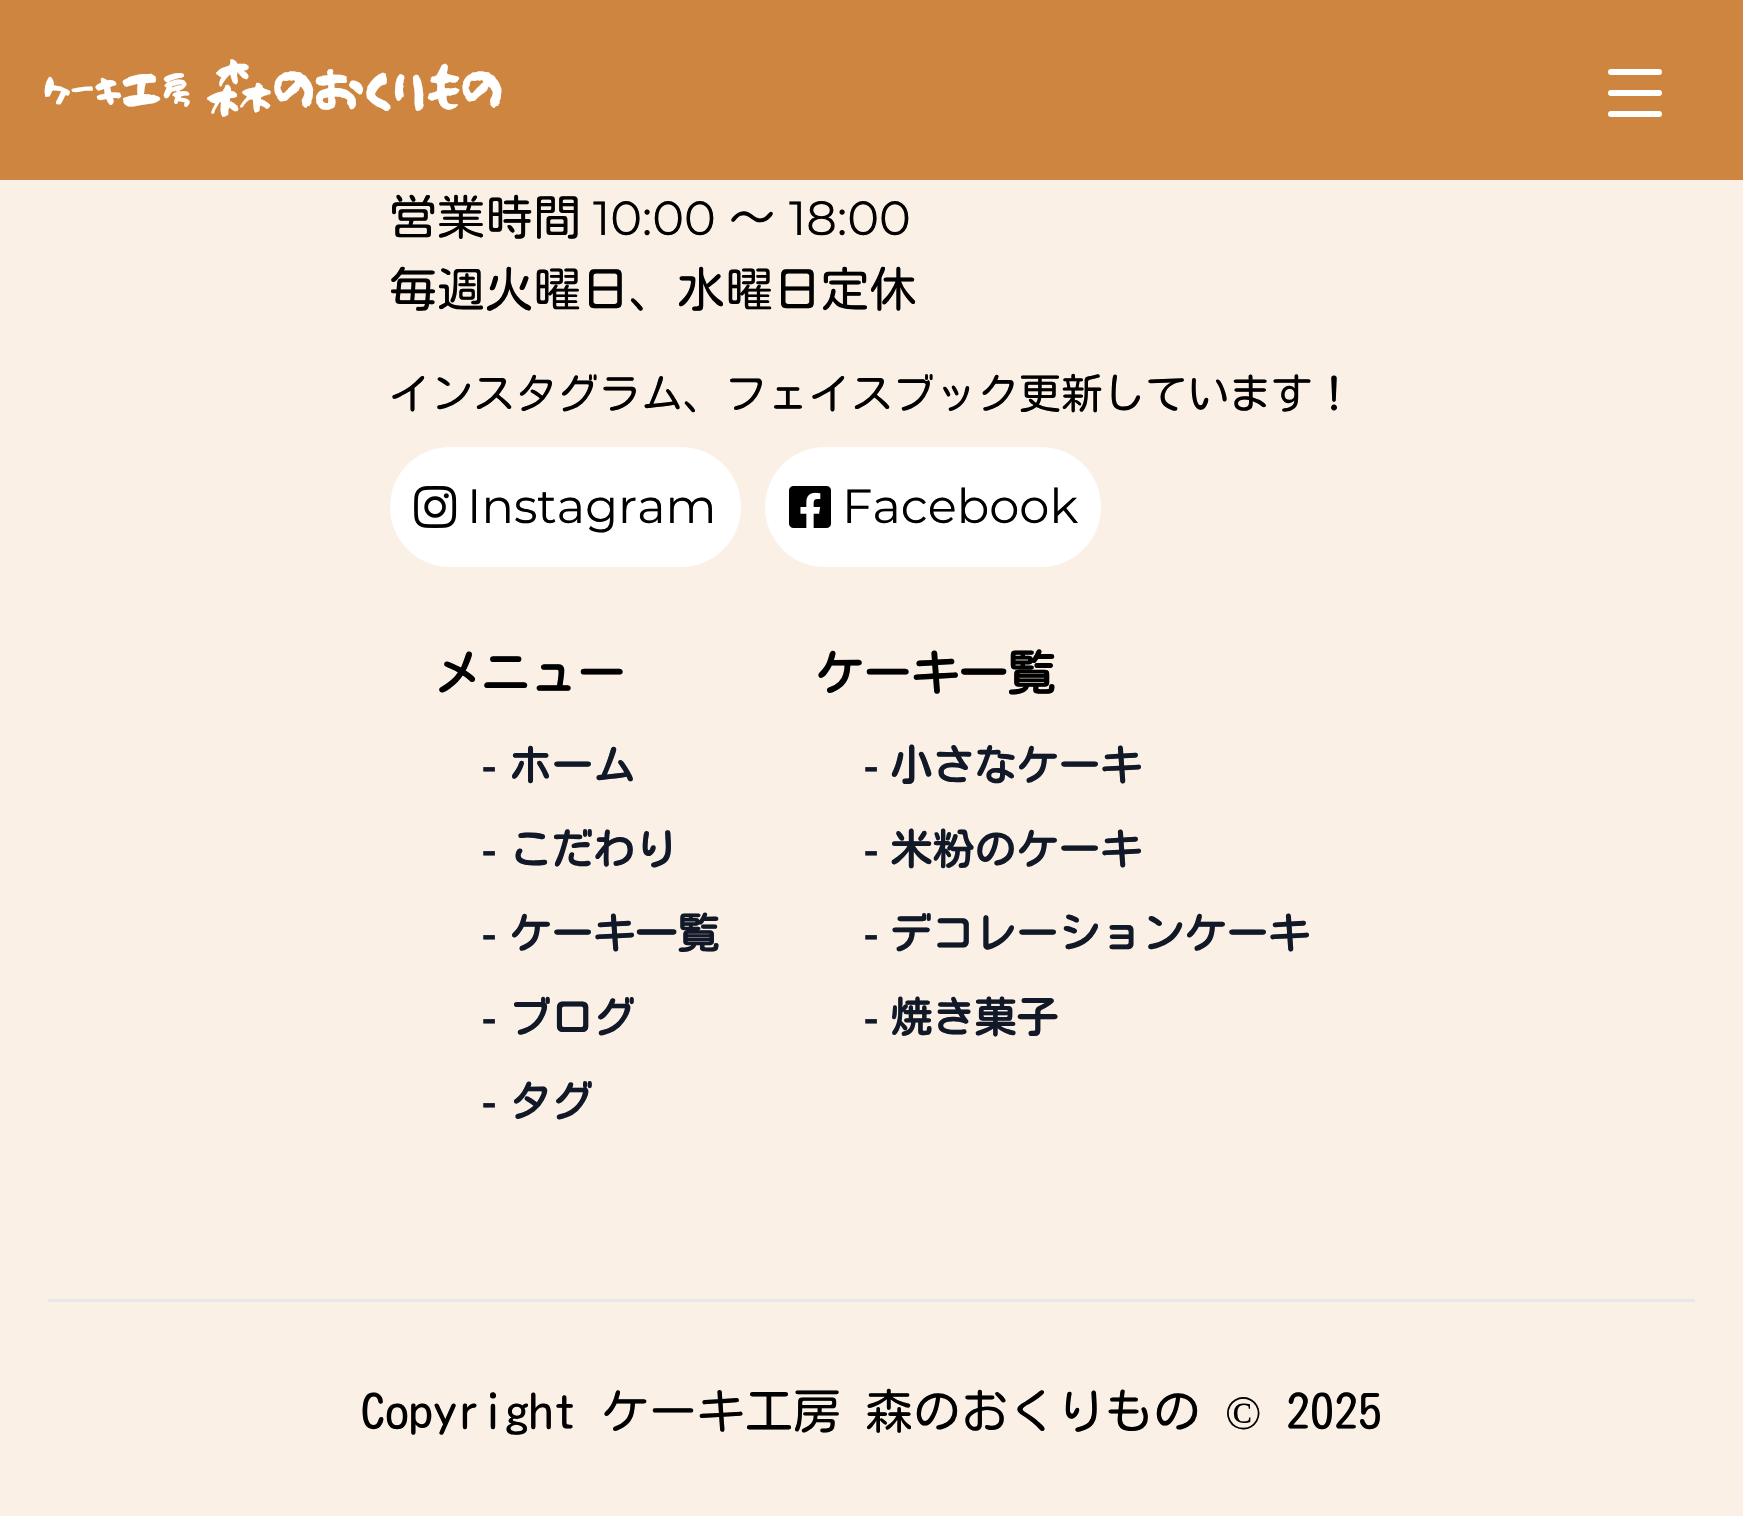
void draw(SkCanvas* canvas) {
	SkPaint fill;
	fill.setAntiAlias(true);
	auto makeFont = [&](const char* family, int weight, float size, bool italic = false) {
		SkFontStyle style(weight, SkFontStyle::kNormal_Width,
			italic ? SkFontStyle::kItalic_Slant : SkFontStyle::kUpright_Slant);
		SkFont result(fontMgr->matchFamilyStyle(family, style), size);
		result.setSubpixel(true);
		return result;
	};
	auto text = [&](const char* s, float x, float y, const SkFont& font) {
		canvas->drawString(s, x, y, font, fill);
	};
	auto box = [&](float l, float t, float r, float b) {
		canvas->drawRect(SkRect::MakeLTRB(l, t, r, b), fill);
	};
	auto roundBox = [&](float l, float t, float r, float b, float radius) {
		canvas->drawRoundRect(SkRect::MakeLTRB(l, t, r, b), radius, radius, fill);
	};
	auto picture = [&](const char* path, float l, float t, float r, float b) {
		auto image = SkImages::DeferredFromEncodedData(SkData::MakeFromFileName(path));
		canvas->drawImageRect(image, SkRect::MakeLTRB(l, t, r, b), SkSamplingOptions());
	};
	canvas->clear(0xFFFAF0E6);
	fill.setColor(0xFFCD853F);
	box(0, 0, 1743, 180);
	fill.setStyle(SkPaint::kStroke_Style);
	fill.setStrokeWidth(6);
	fill.setStrokeCap(SkPaint::kRound_Cap);
	fill.setStrokeJoin(SkPaint::kRound_Join);
	fill.setColor(0xFFFFFFFF);
	canvas->drawPath(SkPathBuilder().moveTo(1611, 72).lineTo(1659, 72).moveTo(1611, 93).lineTo(1659, 93).moveTo(1611, 114).lineTo(1659, 114).detach(), fill);
	fill.setStyle(SkPaint::kFill_Style);
	roundBox(390, 447, 741, 567, 60);
	picture("image0.png", 414, 486, 457, 528);
	roundBox(765, 447, 1101, 567, 60);
	picture("image1.png", 789, 486, 831, 528);
	fill.setColor(0xFFE5E7EB);
	box(48, 1299, 1695, 1302);
	auto font1 = makeFont("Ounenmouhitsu", 400, 36);
	fill.setColor(0xFFFFFFFF);
	text("ケーキ工房", 44, 105, font1);
	auto font2 = makeFont("Ounenmouhitsu", 400, 54);
	text("森のおくりもの", 205, 111, font2);
	auto font3 = makeFont("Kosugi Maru", 400, 48);
	fill.setColor(0xFF000000);
	text("営業時間", 389, 235, font3);
	auto font4 = makeFont("Montserrat", 400, 48);
	text("10:00", 593, 235, font4);
	text("〜", 728, 235, font3);
	text("18:00", 789, 235, font4);
	text("毎週火曜日、水曜日定休", 389, 307, font3);
	auto font5 = makeFont("Kosugi Maru", 400, 42);
	text("インスタグラム、フェイスブック更新しています！", 389, 409, font5);
	text("Instagram", 467, 523, font4);
	text("Facebook", 842, 523, font4);
	auto font6 = makeFont("Kosugi Maru", 700, 48);
	text("メニュー", 433, 691, font6);
	auto font7 = makeFont("Montserrat", 600, 42);
	fill.setColor(0xFF111827);
	text("-", 481, 781, font7);
	auto font8 = makeFont("Kosugi Maru", 700, 42);
	text("ホーム", 509, 781, font8);
	text("-", 481, 865, font7);
	text("こだわり", 509, 865, font8);
	text("-", 481, 949, font7);
	text("ケーキ一覧", 509, 949, font8);
	text("-", 481, 1033, font7);
	text("ブログ", 509, 1033, font8);
	text("-", 481, 1117, font7);
	text("タグ", 509, 1117, font8);
	fill.setColor(0xFF000000);
	text("ケーキ一覧", 815, 691, font6);
	fill.setColor(0xFF111827);
	text("-", 863, 781, font7);
	text("小さなケーキ", 890, 781, font8);
	text("-", 863, 865, font7);
	text("米粉のケーキ", 890, 865, font8);
	text("-", 863, 949, font7);
	text("デコレーションケーキ", 890, 949, font8);
	text("-", 863, 1033, font7);
	text("焼き菓子", 890, 1033, font8);
	fill.setColor(0xFF000000);
	text("Copyright ケーキ工房 森のおくりもの", 361, 1429, font3);
	auto font9 = makeFont("Liberation Serif", 400, 48);
	text("©", 1225, 1429, font9);
	text("2025", 1286, 1429, font3);
}
